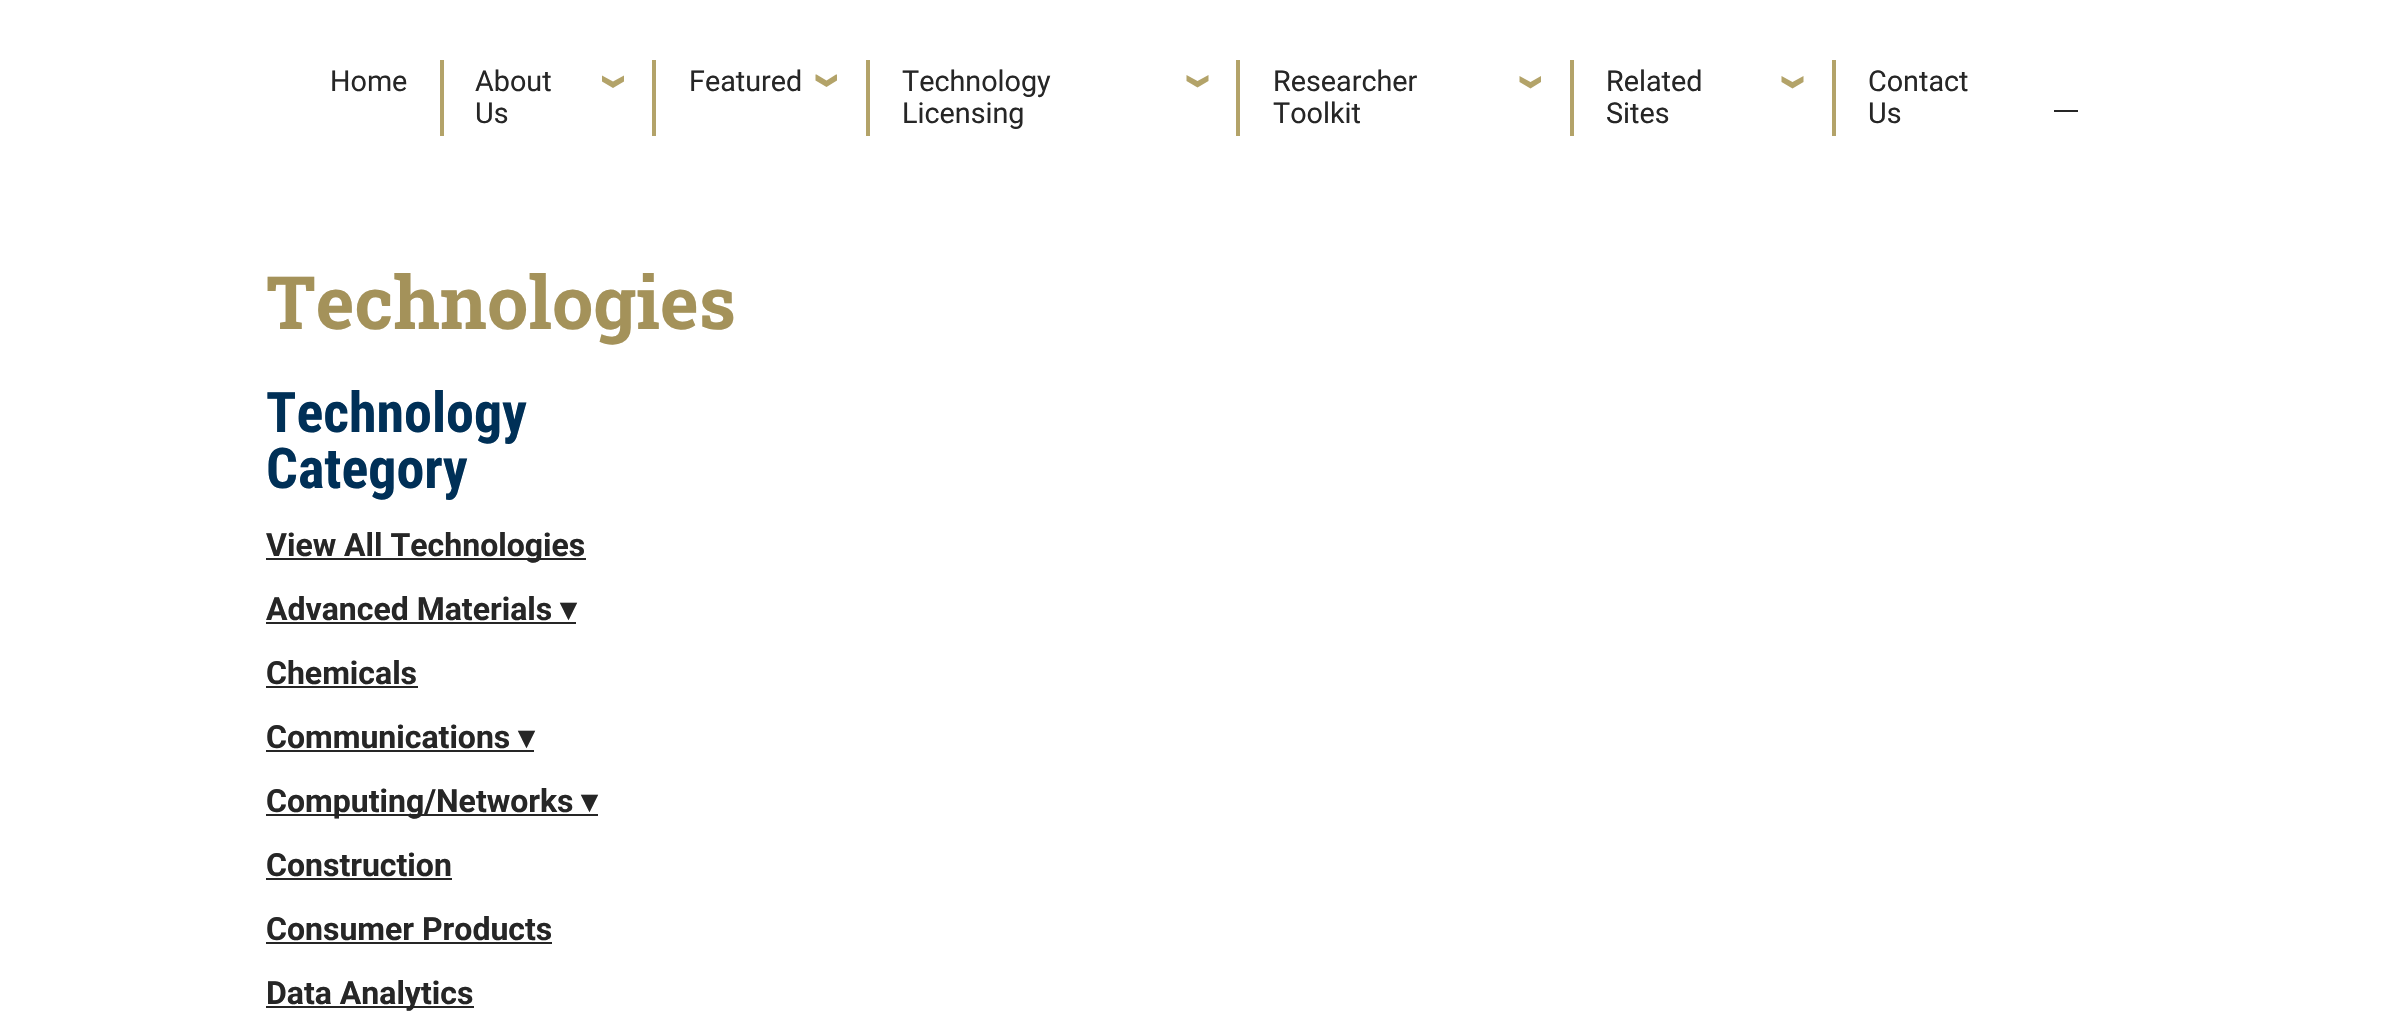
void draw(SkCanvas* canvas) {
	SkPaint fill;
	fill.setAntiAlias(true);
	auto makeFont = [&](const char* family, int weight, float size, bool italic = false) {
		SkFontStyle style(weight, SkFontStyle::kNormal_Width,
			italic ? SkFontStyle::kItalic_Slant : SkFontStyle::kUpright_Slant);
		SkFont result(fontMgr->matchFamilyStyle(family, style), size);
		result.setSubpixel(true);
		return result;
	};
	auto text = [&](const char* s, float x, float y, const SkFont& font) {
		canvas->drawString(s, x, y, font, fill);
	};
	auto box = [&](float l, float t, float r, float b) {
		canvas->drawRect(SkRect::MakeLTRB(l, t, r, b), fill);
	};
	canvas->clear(0xFFFFFFFF);
	fill.setColor(0xFFB3A369);
	box(440, 60, 444, 136);
	box(652, 60, 656, 136);
	canvas->drawPath(SkPathBuilder().moveTo(624, 75.5f).lineTo(613, 81.5f).lineTo(602, 75.5f).lineTo(602, 81.5f).lineTo(613, 88).lineTo(624, 81.5f).close().detach(), fill);
	box(866, 60, 870, 136);
	canvas->drawPath(SkPathBuilder().moveTo(837, 80.5f).lineTo(837, 74.5f).lineTo(836, 74.5f).lineTo(826.5f, 80.5f).lineTo(816.5f, 74.5f).lineTo(815.5f, 74.5f).lineTo(815.5f, 80.5f).lineTo(826.5f, 87).close().detach(), fill);
	box(1236, 60, 1240, 136);
	canvas->drawPath(SkPathBuilder().moveTo(1208.5f, 75).lineTo(1197.5f, 81).lineTo(1186.5f, 75).lineTo(1186.5f, 81).lineTo(1197.5f, 87.5f).lineTo(1208.5f, 81).close().detach(), fill);
	box(1570, 60, 1574, 136);
	canvas->drawPath(SkPathBuilder().moveTo(1541, 82).lineTo(1541, 76).lineTo(1530.5f, 82).lineTo(1519.5f, 76).lineTo(1519.5f, 82).lineTo(1530.5f, 88.5f).close().detach(), fill);
	box(1832, 60, 1836, 136);
	canvas->drawPath(SkPathBuilder().moveTo(1803.5f, 76).lineTo(1803.5f, 82).lineTo(1792.5f, 88.5f).lineTo(1781.5f, 82).lineTo(1781.5f, 76).lineTo(1792.5f, 82).close().detach(), fill);
	fill.setColor(0xFF262626);
	box(2054, 110, 2078, 112);
	box(266, 558, 586, 560);
	box(266, 622, 576, 624);
	box(266, 686, 418, 688);
	box(266, 750, 534, 752);
	box(266, 814, 598, 816);
	box(266, 878, 452, 880);
	box(266, 942, 552, 944);
	box(266, 1006, 474, 1008);
	auto font1 = makeFont("Roboto", 400, 28.75f);
	text("Home", 330, 91, font1);
	text("About", 475, 91, font1);
	text("Us", 475, 123, font1);
	text("Featured", 689, 91, font1);
	text("Technology", 902, 91, font1);
	text("Licensing", 902, 123, font1);
	text("Researcher", 1273, 91, font1);
	text("Toolkit", 1273, 123, font1);
	text("Related", 1606, 91, font1);
	text("Sites", 1606, 123, font1);
	text("Contact", 1868, 91, font1);
	text("Us", 1868, 123, font1);
	auto font2 = makeFont("Roboto Slab", 700, 73.5f);
	fill.setColor(0xFFA4925A);
	text("Technologies", 266, 329, font2);
	auto font3 = makeFont("Roboto Condensed", 700, 56);
	fill.setColor(0xFF003057);
	text("Technology", 266, 432, font3);
	text("Category", 266, 488, font3);
	auto font4 = makeFont("Roboto", 700, 32);
	fill.setColor(0xFF262626);
	text("View All Technologies", 266, 556, font4);
	text("Advanced Materials", 266, 620, font4);
	auto font5 = makeFont("DejaVu Sans", 700, 32);
	text("▾", 560, 620, font5);
	text("Chemicals", 266, 684, font4);
	text("Communications", 266, 748, font4);
	text("▾", 518, 748, font5);
	text("Computing/Networks", 266, 812, font4);
	text("▾", 581, 812, font5);
	text("Construction", 266, 876, font4);
	text("Consumer Products", 266, 940, font4);
	text("Data Analytics", 266, 1004, font4);
}
